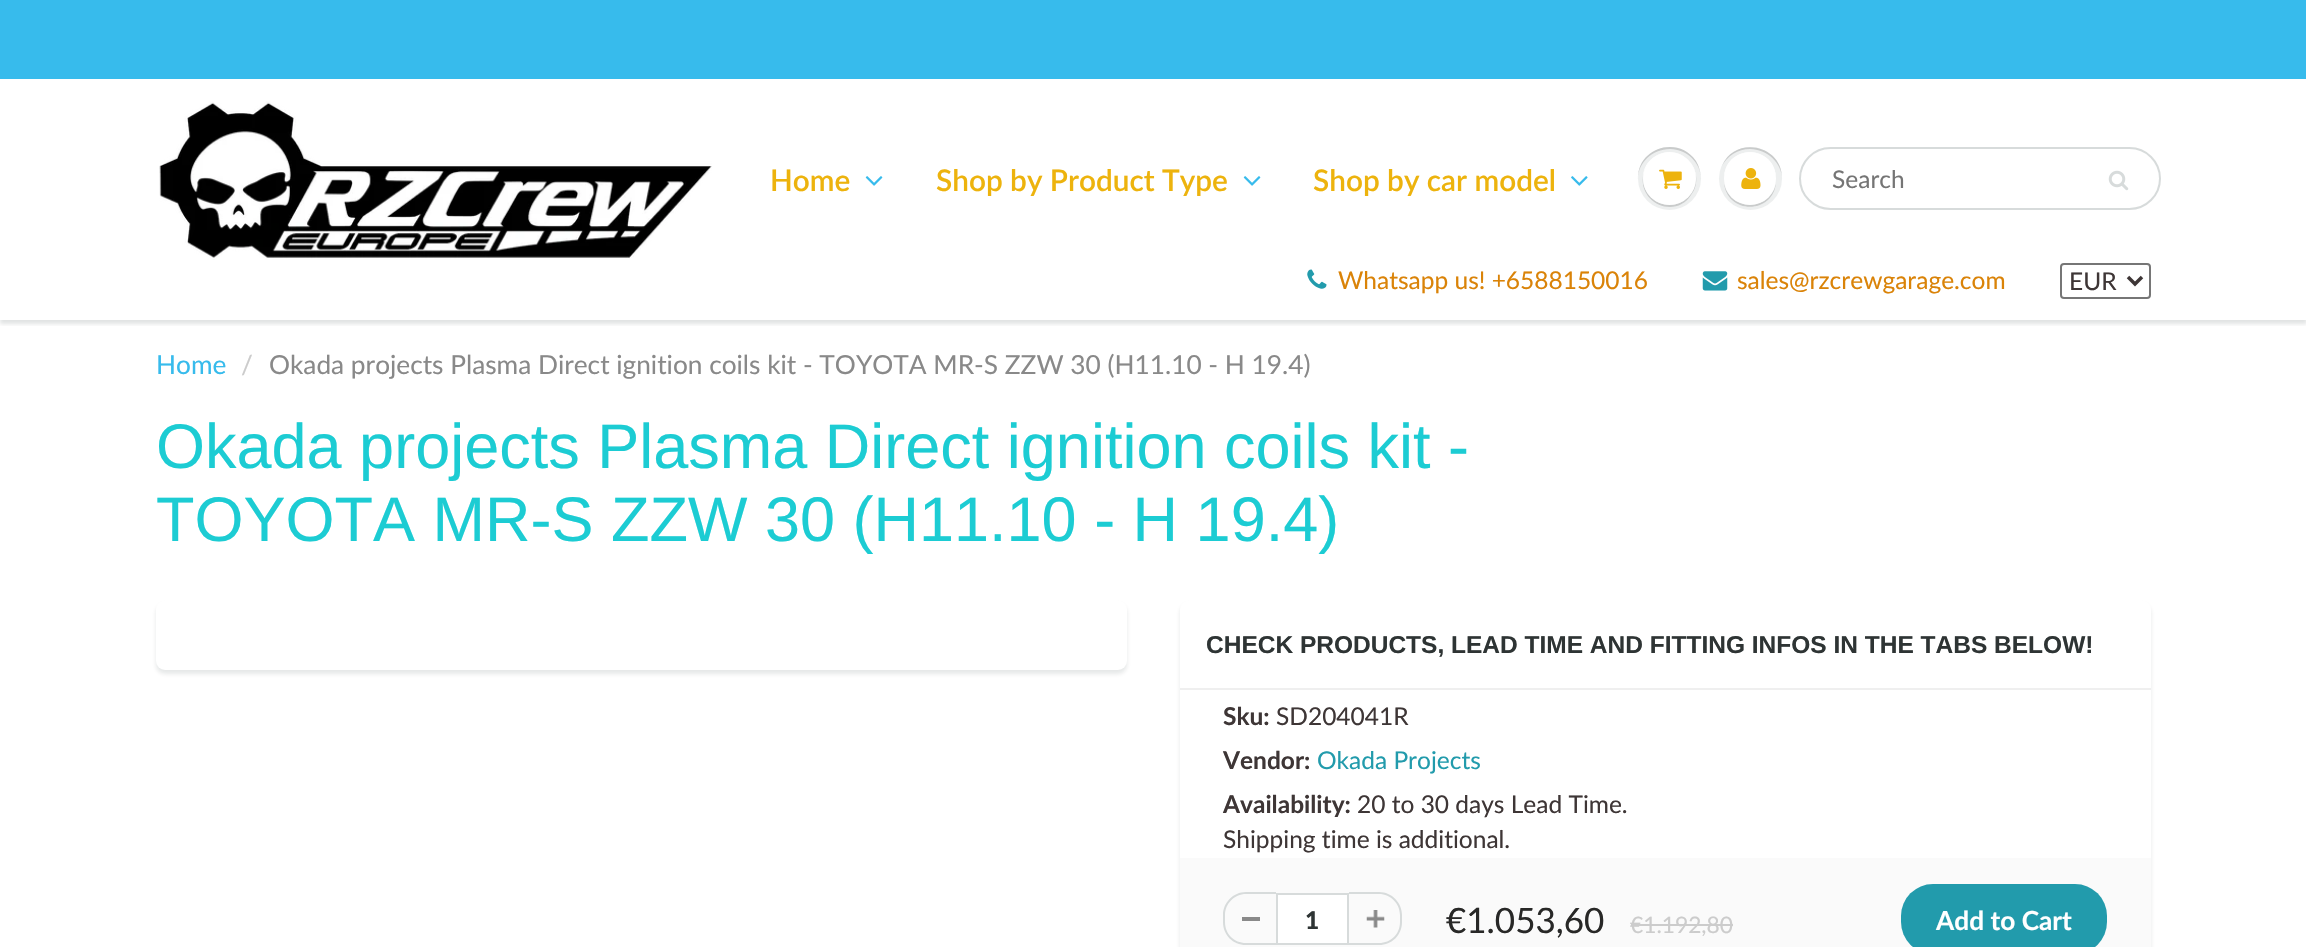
void draw(SkCanvas* canvas) {
	SkPaint fill;
	fill.setAntiAlias(true);
	auto makeFont = [&](const char* family, int weight, float size, bool italic = false) {
		SkFontStyle style(weight, SkFontStyle::kNormal_Width,
			italic ? SkFontStyle::kItalic_Slant : SkFontStyle::kUpright_Slant);
		SkFont result(fontMgr->matchFamilyStyle(family, style), size);
		result.setSubpixel(true);
		return result;
	};
	auto text = [&](const char* s, float x, float y, const SkFont& font) {
		canvas->drawString(s, x, y, font, fill);
	};
	auto box = [&](float l, float t, float r, float b) {
		canvas->drawRect(SkRect::MakeLTRB(l, t, r, b), fill);
	};
	auto roundBox = [&](float l, float t, float r, float b, float radius) {
		canvas->drawRoundRect(SkRect::MakeLTRB(l, t, r, b), radius, radius, fill);
	};
	auto picture = [&](const char* path, float l, float t, float r, float b) {
		auto image = SkImages::DeferredFromEncodedData(SkData::MakeFromFileName(path));
		canvas->drawImageRect(image, SkRect::MakeLTRB(l, t, r, b), SkSamplingOptions());
	};
	canvas->clear(0xFFFFFFFF);
	fill.setColor(0xFF37BBEC);
	box(0, 0, 2306, 79);
	canvas->save();
	canvas->clipRect(SkRect::MakeLTRB(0, 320, 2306, 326));
	fill.setColor(0x1F0B191C);
	fill.setMaskFilter(SkMaskFilter::MakeBlur(kNormal_SkBlurStyle, 2));
	canvas->drawRect(SkRect::MakeLTRB(0, 82, 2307, 324), fill);
	fill.setMaskFilter(nullptr);
	canvas->restore();
	picture("image0.png", 159, 101, 712, 260);
	picture("image1.png", 865, 176, 883, 186);
	picture("image1.png", 1243, 176, 1261, 186);
	picture("image2.png", 1571, 176, 1588, 186);
	fill.setColor(0xFFEDEFEF);
	canvas->drawCircle(1669.5f, 178.5f, 31.5f, fill);
	fill.setColor(0xFFC9CBCB);
	canvas->drawPath(SkPathBuilder().moveTo(1670, 149).cubicTo(1687, 149, 1701, 163, 1701, 179).cubicTo(1701, 173, 1699, 166, 1696, 161).cubicTo(1678, 135, 1637, 148, 1638, 179).cubicTo(1638, 163, 1652, 149, 1670, 149).close().detach(), fill);
	canvas->drawPath(SkPathBuilder().moveTo(1643, 176).cubicTo(1639, 204, 1676, 219, 1691, 195).cubicTo(1695, 190, 1697, 183, 1696, 176).cubicTo(1696, 182, 1695, 188, 1691, 193).cubicTo(1676, 216, 1641, 203, 1643, 176).close().detach(), fill);
	fill.setColor(0xFFFFFFFF);
	canvas->drawCircle(1669.5f, 178.5f, 26.5f, fill);
	canvas->drawPath(SkPathBuilder().moveTo(1670, 154).cubicTo(1684, 154, 1696, 166, 1696, 179).cubicTo(1696, 174, 1695, 168, 1691, 164).cubicTo(1677, 142, 1642, 153, 1643, 179).cubicTo(1643, 166, 1655, 154, 1670, 154).close().detach(), fill);
	picture("image3.png", 1659, 169, 1682, 189);
	fill.setColor(0xFFEDEFEF);
	canvas->drawCircle(1750.5f, 178.5f, 31.5f, fill);
	fill.setColor(0xFFC9CBCB);
	canvas->drawPath(SkPathBuilder().moveTo(1750, 149).cubicTo(1767, 149, 1782, 163, 1782, 179).cubicTo(1783, 145, 1735, 135, 1722, 166).cubicTo(1727, 156, 1738, 149, 1750, 149).close().moveTo(1724, 182).cubicTo(1726, 215, 1774, 215, 1776, 182).cubicTo(1772, 212, 1728, 212, 1724, 182).close().detach(), fill);
	fill.setColor(0xFFFFFFFF);
	roundBox(1724, 152, 1776, 205, 26);
	canvas->drawPath(SkPathBuilder().moveTo(1750, 154).cubicTo(1764, 154, 1776, 166, 1776, 180).cubicTo(1777, 143, 1723, 143, 1724, 180).cubicTo(1724, 166, 1736, 154, 1750, 154).close().detach(), fill);
	picture("image4.png", 1741, 168, 1761, 189);
	fill.setStyle(SkPaint::kStroke_Style);
	fill.setStrokeWidth(2);
	fill.setColor(0xFFD7DBDB);
	canvas->drawRoundRect(SkRect::MakeLTRB(1800, 148, 2160, 209), 30.5f, 30.5f, fill);
	picture("image5.png", 2108, 170, 2129, 191);
	picture("image6.png", 1307, 269, 1327, 289);
	picture("image7.png", 1702, 271, 1728, 291);
	fill.setColor(0xFF767676);
	canvas->drawRoundRect(SkRect::MakeLTRB(2061, 264, 2150, 298), 3, 3, fill);
	fill.setStrokeWidth(3.5f);
	fill.setColor(0xFF3E3636);
	canvas->drawPath(SkPathBuilder().moveTo(2128, 277).lineTo(2135, 284).lineTo(2142, 277).detach(), fill);
	fill.setStyle(SkPaint::kFill_Style);
	fill.setColor(0x1A0B191C);
	fill.setMaskFilter(SkMaskFilter::MakeBlur(kNormal_SkBlurStyle, 2));
	canvas->drawRoundRect(SkRect::MakeLTRB(156, 604, 1127, 674), 9, 9, fill);
	fill.setMaskFilter(nullptr);
	fill.setColor(0xFFFFFFFF);
	roundBox(156, 600, 1127, 670, 9);
	fill.setColor(0x1A0B191C);
	fill.setMaskFilter(SkMaskFilter::MakeBlur(kNormal_SkBlurStyle, 2));
	canvas->drawRoundRect(SkRect::MakeLTRB(1180, 604, 2151, 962), 9, 9, fill);
	fill.setMaskFilter(nullptr);
	fill.setColor(0xFFFFFFFF);
	roundBox(1180, 600, 2151, 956, 9);
	fill.setColor(0xFFEFEFEF);
	box(1180, 688, 2151, 690);
	fill.setColor(0xFFFAFAFA);
	box(1180, 858, 2151, 947);
	fill.setColor(0xFF898989);
	box(1242, 917, 1260, 921);
	fill.setColor(0xFFD7DBDB);
	canvas->drawPath(SkPathBuilder(SkPathFillType::kEvenOdd).moveTo(1246, 892).lineTo(1276, 892).lineTo(1276, 945).lineTo(1246, 945).cubicTo(1233, 945, 1223, 935, 1223, 922).lineTo(1223, 915).cubicTo(1223, 903, 1233, 892, 1246, 892).close().moveTo(1246, 894).lineTo(1276, 894).lineTo(1276, 943).lineTo(1246, 943).cubicTo(1234, 943, 1225, 934, 1225, 922).lineTo(1225, 915).cubicTo(1225, 904, 1234, 894, 1246, 894).close().detach(), fill);
	fill.setColor(0xFFFFFFFF);
	canvas->drawRect(SkRect::MakeLTRB(1277, 894, 1348, 944), fill);
	fill.setStyle(SkPaint::kStroke_Style);
	fill.setStrokeWidth(2);
	fill.setColor(0xFFD7DBDB);
	canvas->drawRect(SkRect::MakeLTRB(1277, 894, 1348, 944), fill);
	picture("image8.png", 1366, 910, 1385, 928);
	fill.setStyle(SkPaint::kFill_Style);
	canvas->drawPath(SkPathBuilder(SkPathFillType::kEvenOdd).moveTo(1349, 892).lineTo(1379, 892).cubicTo(1392, 892, 1402, 903, 1402, 915).lineTo(1402, 922).cubicTo(1402, 935, 1392, 945, 1379, 945).lineTo(1349, 945).close().moveTo(1349, 894).lineTo(1379, 894).cubicTo(1391, 894, 1400, 904, 1400, 915).lineTo(1400, 922).cubicTo(1400, 934, 1391, 943, 1379, 943).lineTo(1349, 943).close().detach(), fill);
	fill.setColor(0xFFCCCCCC);
	box(1631, 924, 1733, 926);
	fill.setColor(0xFF229BAC);
	roundBox(1901, 884, 2107, 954, 32);
	auto font1 = makeFont("Lato", 600, 29.75f);
	fill.setColor(0xFFEDB30D);
	text("Home", 770, 191, font1);
	text("Shop by Product Type", 936, 191, font1);
	text("Shop by car model", 1313, 191, font1);
	auto font2 = makeFont("Lato", 400, 24.5f);
	fill.setColor(0xFF757575);
	text("Search", 1832, 188, font2);
	fill.setColor(0xFFDA8308);
	text("Whatsapp us! +6588150016", 1338, 289, font2);
	text("sales@rzcrewgarage.com", 1737, 289, font2);
	fill.setColor(0xFF3E3636);
	text("EUR", 2069, 290, font2);
	auto font3 = makeFont("Lato", 400, 26.25f);
	fill.setColor(0xFF37BBEC);
	text("Home", 156, 374, font3);
	fill.setColor(0xFFCCCCCC);
	text("/", 241, 374, font3);
	fill.setColor(0xFF898989);
	text("Okada projects Plasma Direct ignition coils kit - TOYOTA MR-S ZZW 30 (H11.10 - H 19.4)", 269, 374, font3);
	auto font4 = makeFont("Liberation Sans", 400, 63);
	fill.setColor(0xFF1CCCD3);
	text("Okada projects Plasma Direct ignition coils kit -", 156, 468, font4);
	text("TOYOTA MR-S ZZW 30 (H11.10 - H 19.4)", 156, 541, font4);
	auto font5 = makeFont("Liberation Sans", 700, 24.5f);
	fill.setColor(0xFF2E3434);
	text("CHECK PRODUCTS, LEAD TIME AND FITTING INFOS IN THE TABS BELOW!", 1206, 653, font5);
	auto font6 = makeFont("Lato", 700, 24.5f);
	fill.setColor(0xFF3E3636);
	text("Sku:", 1223, 725, font6);
	text("SD204041R", 1276, 725, font2);
	text("Vendor:", 1223, 769, font6);
	fill.setColor(0xFF229BAC);
	text("Okada Projects", 1317, 769, font2);
	fill.setColor(0xFF3E3636);
	text("Availability:", 1223, 813, font6);
	text("20 to 30 days Lead Time.", 1357, 813, font2);
	text("Shipping time is additional.", 1223, 848, font2);
	auto font7 = makeFont("Lato", 900, 24.5f);
	fill.setColor(0xFF2E3434);
	text("1", 1305, 929, font7);
	auto font8 = makeFont("Lato", 400, 35);
	fill.setColor(0xFF282827);
	text("€1.053,60", 1446, 933, font8);
	auto font9 = makeFont("Lato", 400, 22.75f);
	fill.setColor(0xFFCCCCCC);
	text("€1.192,80", 1630, 933, font9);
	auto font10 = makeFont("Lato", 700, 26.25f);
	fill.setColor(0xFFFFFFFF);
	text("Add to Cart", 1936, 930, font10);
}
